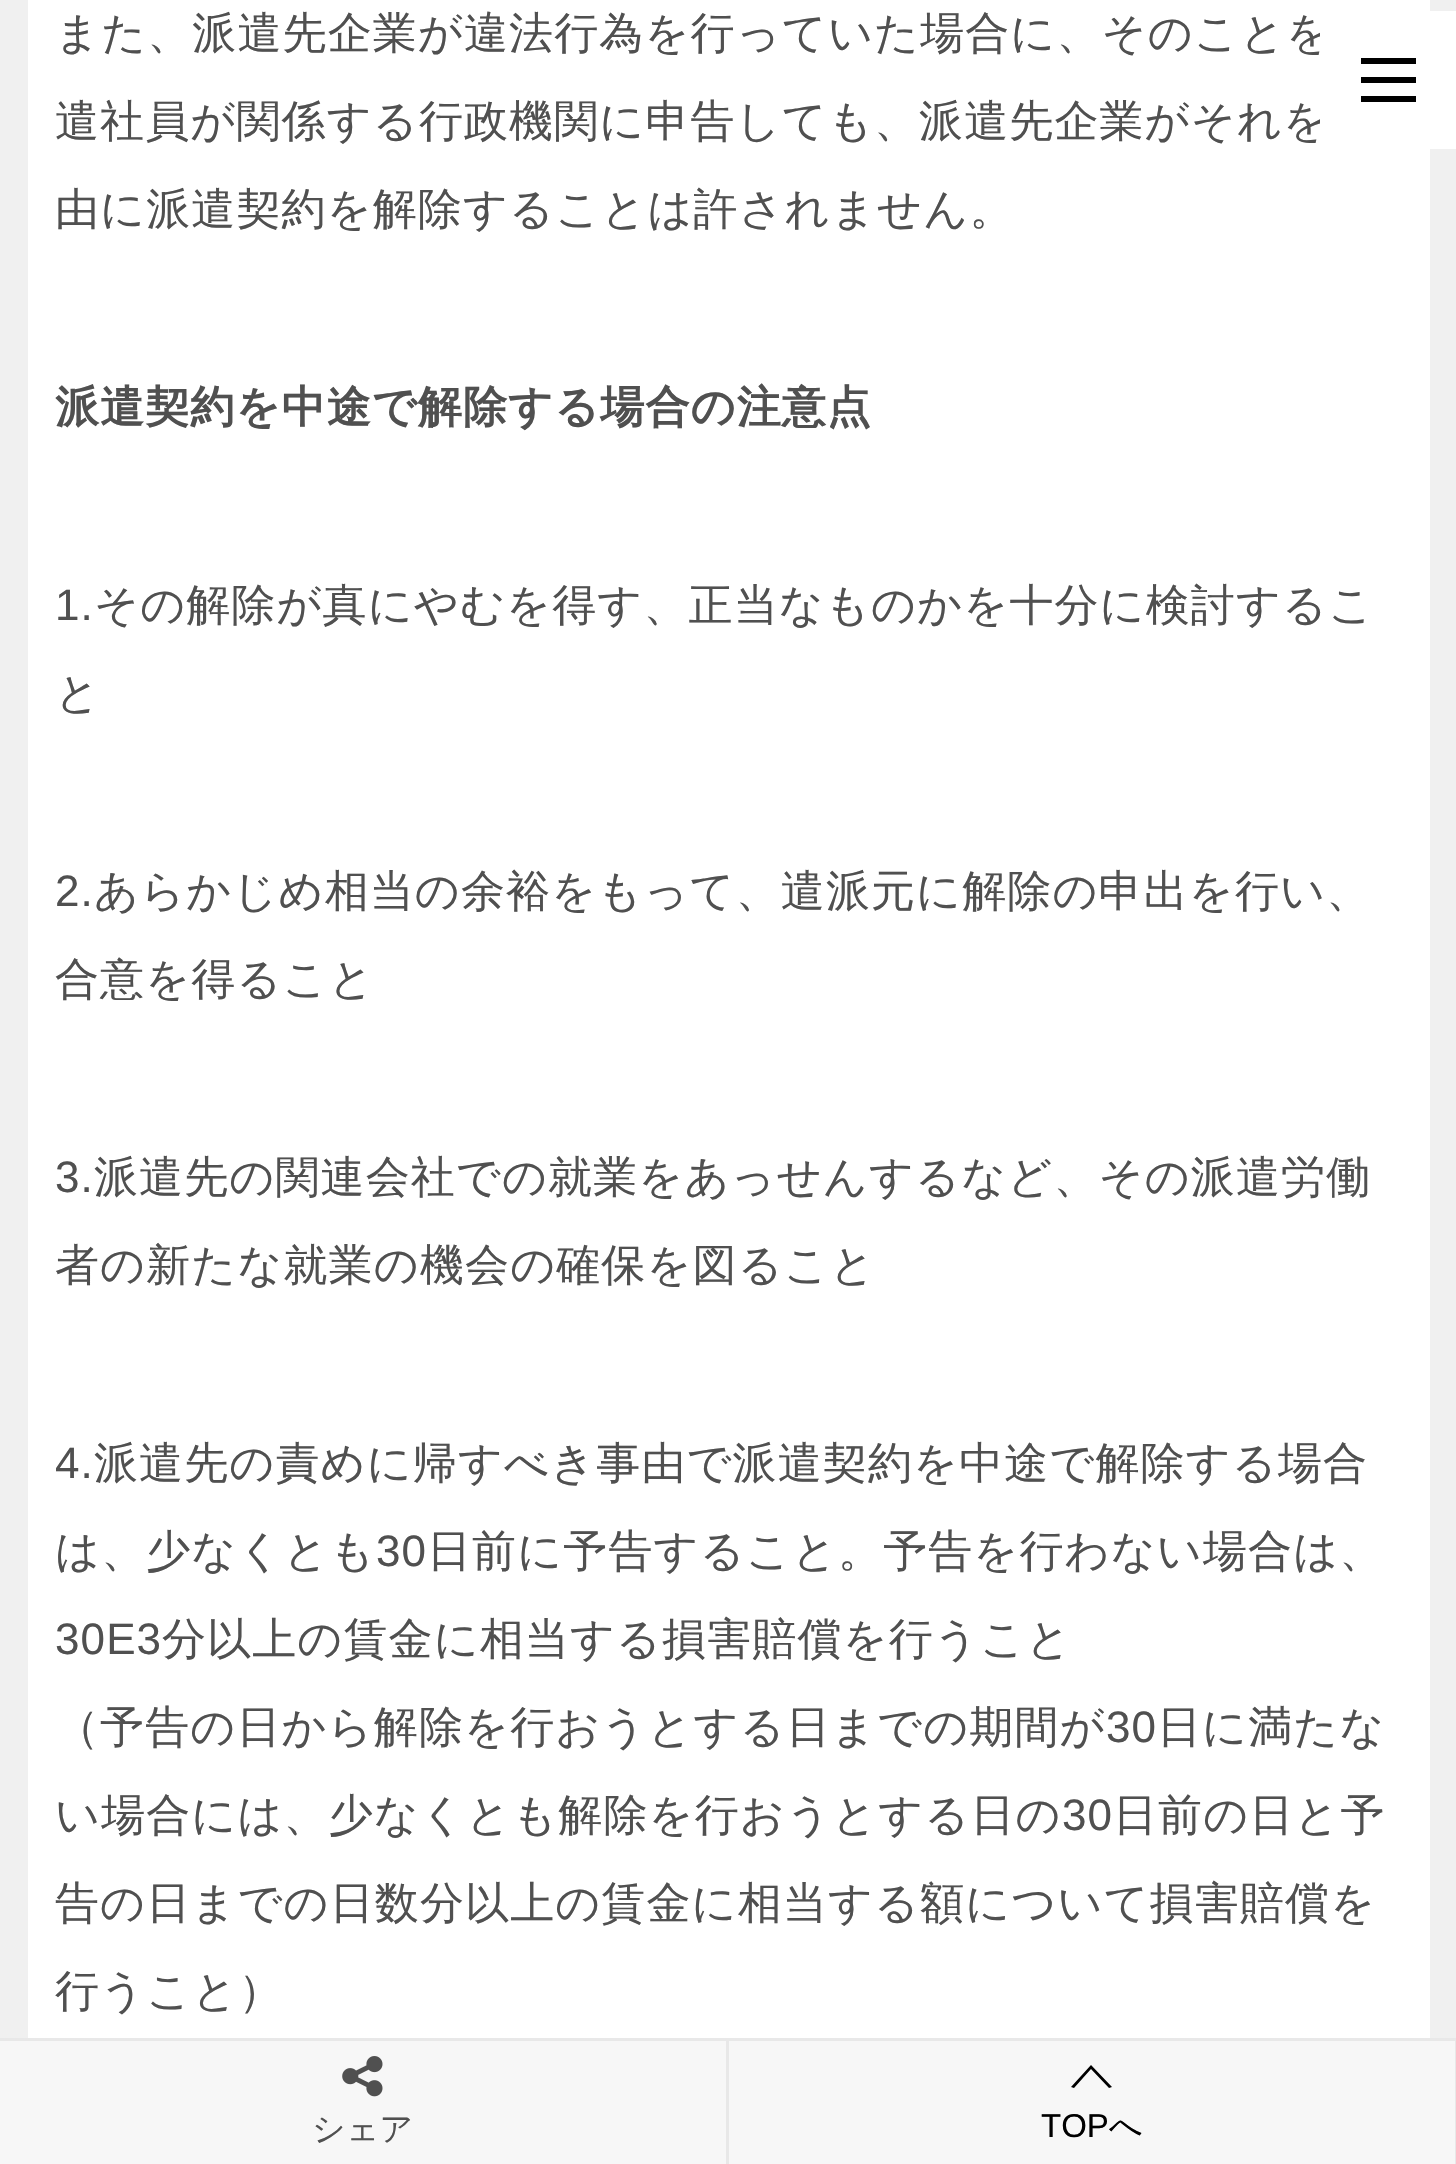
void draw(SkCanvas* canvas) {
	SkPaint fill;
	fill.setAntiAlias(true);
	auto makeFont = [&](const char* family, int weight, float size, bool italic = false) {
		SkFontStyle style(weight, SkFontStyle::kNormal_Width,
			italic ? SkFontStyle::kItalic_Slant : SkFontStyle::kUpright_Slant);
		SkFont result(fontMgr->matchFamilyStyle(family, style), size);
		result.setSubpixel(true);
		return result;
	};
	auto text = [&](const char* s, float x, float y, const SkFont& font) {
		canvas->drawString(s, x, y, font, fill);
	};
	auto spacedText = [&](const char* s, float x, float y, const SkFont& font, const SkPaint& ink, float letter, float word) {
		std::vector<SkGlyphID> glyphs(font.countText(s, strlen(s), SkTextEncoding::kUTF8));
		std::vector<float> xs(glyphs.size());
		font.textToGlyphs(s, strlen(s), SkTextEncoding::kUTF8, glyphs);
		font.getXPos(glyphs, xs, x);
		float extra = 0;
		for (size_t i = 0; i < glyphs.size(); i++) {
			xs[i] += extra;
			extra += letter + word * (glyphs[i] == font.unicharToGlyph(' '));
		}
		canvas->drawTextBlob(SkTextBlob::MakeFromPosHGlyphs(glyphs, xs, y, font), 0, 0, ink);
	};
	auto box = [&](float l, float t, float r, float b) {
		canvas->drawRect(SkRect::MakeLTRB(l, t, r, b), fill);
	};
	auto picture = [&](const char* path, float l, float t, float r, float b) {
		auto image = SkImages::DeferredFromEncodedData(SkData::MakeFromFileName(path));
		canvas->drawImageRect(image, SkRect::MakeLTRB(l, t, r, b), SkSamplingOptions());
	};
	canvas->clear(0xFFF0F0F0);
	fill.setColor(0xFFFFFFFF);
	box(28, 0, 1430, 2038);
	fill.setColor(0xFFF7F7F7);
	box(0, 2041, 1455, 2164);
	fill.setColor(0xFFE8E8E8);
	box(0, 2038, 1456, 2041);
	box(726, 2041, 729, 2164);
	picture("image0.png", 342, 2056, 383, 2097);
	box(1455, 2041, 1456, 2164);
	fill.setColor(0xFF000000);
	canvas->drawPath(SkPathBuilder().moveTo(1091, 2065).lineTo(1112, 2087).lineTo(1109, 2088).lineTo(1091, 2069).lineTo(1074, 2088).lineTo(1071, 2087).close().detach(), fill);
	auto font1 = makeFont("WenQuanYi Zen Hei", 500, 44);
	fill.setColor(0xFF505050);
	spacedText("また、派遣先企業が違法⾏為を⾏っていた場合に、そのことを", 55, 48, font1, fill, 1.1f, 0);
	spacedText("遣社員が関係する⾏政機関に申告しても、派遣先企業がそれを", 55, 136, font1, fill, 1.1f, 0);
	spacedText("由に派遣契約を解除することは許されません。", 55, 224, font1, fill, 1.1f, 0);
	auto font2 = makeFont("WenQuanYi Zen Hei", 700, 44);
	spacedText("派遣契約を中途で解除する場合の注意点", 55, 422, font2, fill, 1.1f, 0);
	auto font3 = makeFont("Liberation Sans", 400, 44);
	spacedText("1.", 55, 620, font3, fill, 1.1f, 0);
	spacedText("その解除が真にやむを得す、正当なものかを十分に検討するこ", 94, 620, font1, fill, 1.1f, 0);
	spacedText("と", 55, 708, font1, fill, 1.1f, 0);
	spacedText("2.", 55, 906, font3, fill, 1.1f, 0);
	spacedText("あらかじめ相当の余裕をもって、遣派元に解除の申出を行い、", 94, 906, font1, fill, 1.1f, 0);
	spacedText("合意を得ること", 55, 994, font1, fill, 1.1f, 0);
	spacedText("3.", 55, 1192, font3, fill, 1.1f, 0);
	spacedText("派遣先の関連会社での就業をあっせんするなど、その派遣労働", 94, 1192, font1, fill, 1.1f, 0);
	spacedText("者の新たな就業の機会の確保を図ること", 55, 1280, font1, fill, 1.1f, 0);
	spacedText("4.", 55, 1478, font3, fill, 1.1f, 0);
	spacedText("派遣先の責めに帰すべき事由で派遣契約を中途で解除する場合", 94, 1478, font1, fill, 1.1f, 0);
	spacedText("は、少なくとも", 55, 1566, font1, fill, 1.1f, 0);
	spacedText("30", 376, 1566, font3, fill, 1.1f, 0);
	spacedText("日前に予告すること。予告を行わない場合は、", 427, 1566, font1, fill, 1.1f, 0);
	spacedText("30E3", 55, 1654, font3, fill, 1.1f, 0);
	spacedText("分以上の賃金に相当する損害賠償を行うこと", 162, 1654, font1, fill, 1.1f, 0);
	spacedText("（予告の日から解除を行おうとする日までの期間が", 55, 1742, font1, fill, 1.1f, 0);
	spacedText("30", 1106, 1742, font3, fill, 1.1f, 0);
	spacedText("日に満たな", 1157, 1742, font1, fill, 1.1f, 0);
	spacedText("い場合には、少なくとも解除を行おうとする日の", 55, 1830, font1, fill, 1.1f, 0);
	spacedText("30", 1062, 1830, font3, fill, 1.1f, 0);
	spacedText("日前の日と予", 1113, 1830, font1, fill, 1.1f, 0);
	spacedText("告の日までの日数分以上の賃金に相当する額について損害賠償を", 55, 1918, font1, fill, 1.1f, 0);
	spacedText("行うこと）", 55, 2006, font1, fill, 1.1f, 0);
	fill.setColor(0xFFFFFFFF);
	box(1320, 11, 1456, 149);
	fill.setColor(0xFF000000);
	box(1361, 77, 1416, 83);
	box(1361, 58, 1416, 64);
	box(1361, 96, 1416, 102);
	auto font4 = makeFont("WenQuanYi Zen Hei", 500, 33);
	fill.setColor(0xFF505050);
	text("シェア", 312, 2140, font4);
	auto font5 = makeFont("Liberation Sans", 400, 33);
	fill.setColor(0xFF000000);
	text("TOP", 1041, 2137, font5);
	text("へ", 1109, 2137, font4);
}
